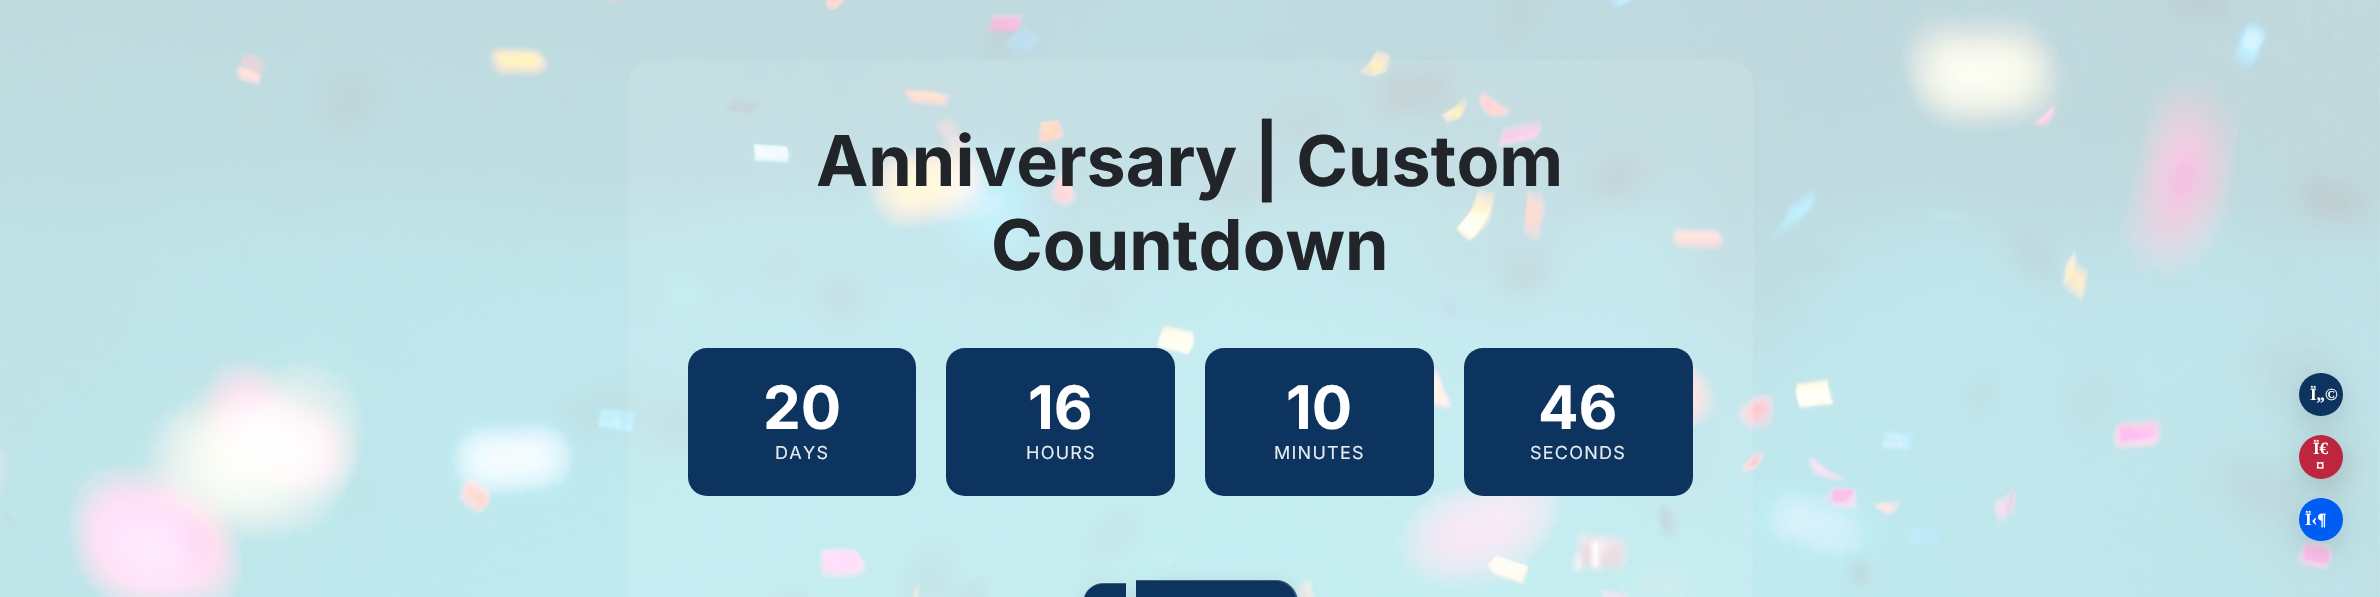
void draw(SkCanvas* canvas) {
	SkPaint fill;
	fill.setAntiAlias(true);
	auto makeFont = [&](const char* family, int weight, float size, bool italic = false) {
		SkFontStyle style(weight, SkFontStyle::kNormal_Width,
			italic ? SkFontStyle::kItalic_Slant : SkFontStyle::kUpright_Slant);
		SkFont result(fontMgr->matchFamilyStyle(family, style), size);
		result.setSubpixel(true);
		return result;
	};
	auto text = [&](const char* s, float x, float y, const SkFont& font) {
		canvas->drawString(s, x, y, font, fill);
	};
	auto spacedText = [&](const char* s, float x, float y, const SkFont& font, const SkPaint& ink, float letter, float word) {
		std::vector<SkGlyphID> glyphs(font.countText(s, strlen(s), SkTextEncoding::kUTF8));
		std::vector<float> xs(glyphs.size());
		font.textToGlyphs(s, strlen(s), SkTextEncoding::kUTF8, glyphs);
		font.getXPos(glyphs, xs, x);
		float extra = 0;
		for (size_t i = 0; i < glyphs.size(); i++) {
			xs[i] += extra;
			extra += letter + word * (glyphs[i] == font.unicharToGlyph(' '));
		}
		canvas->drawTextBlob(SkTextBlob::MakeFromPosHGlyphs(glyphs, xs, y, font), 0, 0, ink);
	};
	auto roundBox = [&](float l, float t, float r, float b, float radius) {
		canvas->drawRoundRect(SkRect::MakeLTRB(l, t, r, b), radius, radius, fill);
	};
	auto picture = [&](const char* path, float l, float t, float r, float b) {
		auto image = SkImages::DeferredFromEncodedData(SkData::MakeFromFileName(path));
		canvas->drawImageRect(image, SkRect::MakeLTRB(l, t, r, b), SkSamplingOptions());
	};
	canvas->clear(0xFFFFFFFF);
	picture("image0.png", 0, 0, 2380, 597);
	fill.setColor(0x1AFFFFFF);
	roundBox(628, 60, 1753, 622, 25);
	fill.setColor(0xFF0D345E);
	roundBox(688, 348, 916, 496, 19);
	roundBox(946, 348, 1175, 496, 19);
	roundBox(1205, 348, 1434, 496, 19);
	roundBox(1464, 348, 1693, 496, 19);
	fill.setColor(0x1A000000);
	fill.setMaskFilter(SkMaskFilter::MakeBlur(kNormal_SkBlurStyle, 9.5f));
	canvas->drawRoundRect(SkRect::MakeLTRB(1083, 588, 1126, 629), 20.5f, 20.5f, fill);
	fill.setMaskFilter(nullptr);
	fill.setColor(0xFF0D345E);
	canvas->drawPath(SkPathBuilder().moveTo(1103.5f, 583).lineTo(1126, 583).lineTo(1126, 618).lineTo(1103.5f, 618).cubicTo(1092, 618, 1083, 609, 1083, 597.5f).lineTo(1083, 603.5f).cubicTo(1083, 592, 1092, 583, 1103.5f, 583).close().detach(), fill);
	fill.setColor(0x33FFFFFF);
	canvas->drawPath(SkPathBuilder(SkPathFillType::kEvenOdd).moveTo(1103, 582).lineTo(1126, 582).lineTo(1126, 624).cubicTo(1118, 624, 1102, 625, 1095, 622).cubicTo(1075, 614, 1081, 582, 1103, 582).close().moveTo(1103, 584).lineTo(1126, 584).lineTo(1126, 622).cubicTo(1118, 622, 1103, 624, 1096, 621).cubicTo(1076, 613, 1082, 584, 1103, 584).close().detach(), fill);
	fill.setColor(0x1A000000);
	fill.setMaskFilter(SkMaskFilter::MakeBlur(kNormal_SkBlurStyle, 9.5f));
	canvas->drawRoundRect(SkRect::MakeLTRB(1136, 585, 1298, 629), 22, 22, fill);
	fill.setMaskFilter(nullptr);
	fill.setColor(0xFF0D345E);
	canvas->drawPath(SkPathBuilder().moveTo(1136, 580).lineTo(1276, 580).cubicTo(1288, 580, 1298, 590, 1298, 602).lineTo(1298, 597).cubicTo(1298, 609, 1288, 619, 1276, 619).lineTo(1136, 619).close().detach(), fill);
	fill.setColor(0x33FFFFFF);
	canvas->drawPath(SkPathBuilder(SkPathFillType::kEvenOdd).moveTo(1136, 580).lineTo(1276, 580).cubicTo(1288, 580, 1298, 590, 1298, 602).cubicTo(1298, 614, 1288, 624, 1276, 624).lineTo(1136, 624).close().moveTo(1136, 581).lineTo(1276, 581).cubicTo(1287, 581, 1296, 590, 1296, 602).cubicTo(1296, 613, 1287, 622, 1276, 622).lineTo(1136, 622).close().detach(), fill);
	fill.setColor(0x26000000);
	fill.setMaskFilter(SkMaskFilter::MakeBlur(kNormal_SkBlurStyle, 15.5f));
	canvas->drawRoundRect(SkRect::MakeLTRB(2299, 383, 2343, 426), 21.5f, 21.5f, fill);
	fill.setMaskFilter(nullptr);
	fill.setColor(0xFF0D345E);
	roundBox(2299, 373, 2343, 416, 21.5f);
	fill.setColor(0x26000000);
	fill.setMaskFilter(SkMaskFilter::MakeBlur(kNormal_SkBlurStyle, 15.5f));
	canvas->drawRoundRect(SkRect::MakeLTRB(2299, 445, 2343, 489), 22, 22, fill);
	fill.setMaskFilter(nullptr);
	fill.setColor(0xFFBE253F);
	canvas->drawCircle(2321, 457, 22, fill);
	fill.setColor(0x26000000);
	fill.setMaskFilter(SkMaskFilter::MakeBlur(kNormal_SkBlurStyle, 15.5f));
	canvas->drawRoundRect(SkRect::MakeLTRB(2299, 508, 2343, 551), 21.5f, 21.5f, fill);
	fill.setMaskFilter(nullptr);
	fill.setColor(0xFF005DF3);
	roundBox(2299, 498, 2343, 541, 21.5f);
	auto font1 = makeFont("Inter", 700, 70);
	fill.setColor(0xFF212529);
	text("Anniversary | Custom", 816, 186, font1);
	text("Countdown", 991, 270, font1);
	auto font2 = makeFont("Inter", 700, 60);
	fill.setColor(0xFFFFFFFF);
	text("20", 763, 429, font2);
	auto font3 = makeFont("Inter", 400, 18);
	fill.setColor(0xFFE7EBEF);
	spacedText("DAYS", 775, 459, font3, fill, 1.25f, 0);
	fill.setColor(0xFFFFFFFF);
	text("16", 1028, 429, font2);
	fill.setColor(0xFFE7EBEF);
	spacedText("HOURS", 1026, 459, font3, fill, 1.25f, 0);
	fill.setColor(0xFFFFFFFF);
	text("10", 1286, 429, font2);
	fill.setColor(0xFFE7EBEF);
	spacedText("MINUTES", 1274, 459, font3, fill, 1.25f, 0);
	fill.setColor(0xFFFFFFFF);
	text("46", 1538, 429, font2);
	fill.setColor(0xFFE7EBEF);
	spacedText("SECONDS", 1530, 459, font3, fill, 1.25f, 0);
	auto font4 = makeFont("Liberation Serif", 700, 17);
	fill.setColor(0xFFFFFFFF);
	text("Ï„©", 2310, 400, font4);
	text("Ï€", 2313, 454, font4);
	text("¤", 2316, 471, font4);
	text("Ï‹¶", 2305, 525, font4);
}
